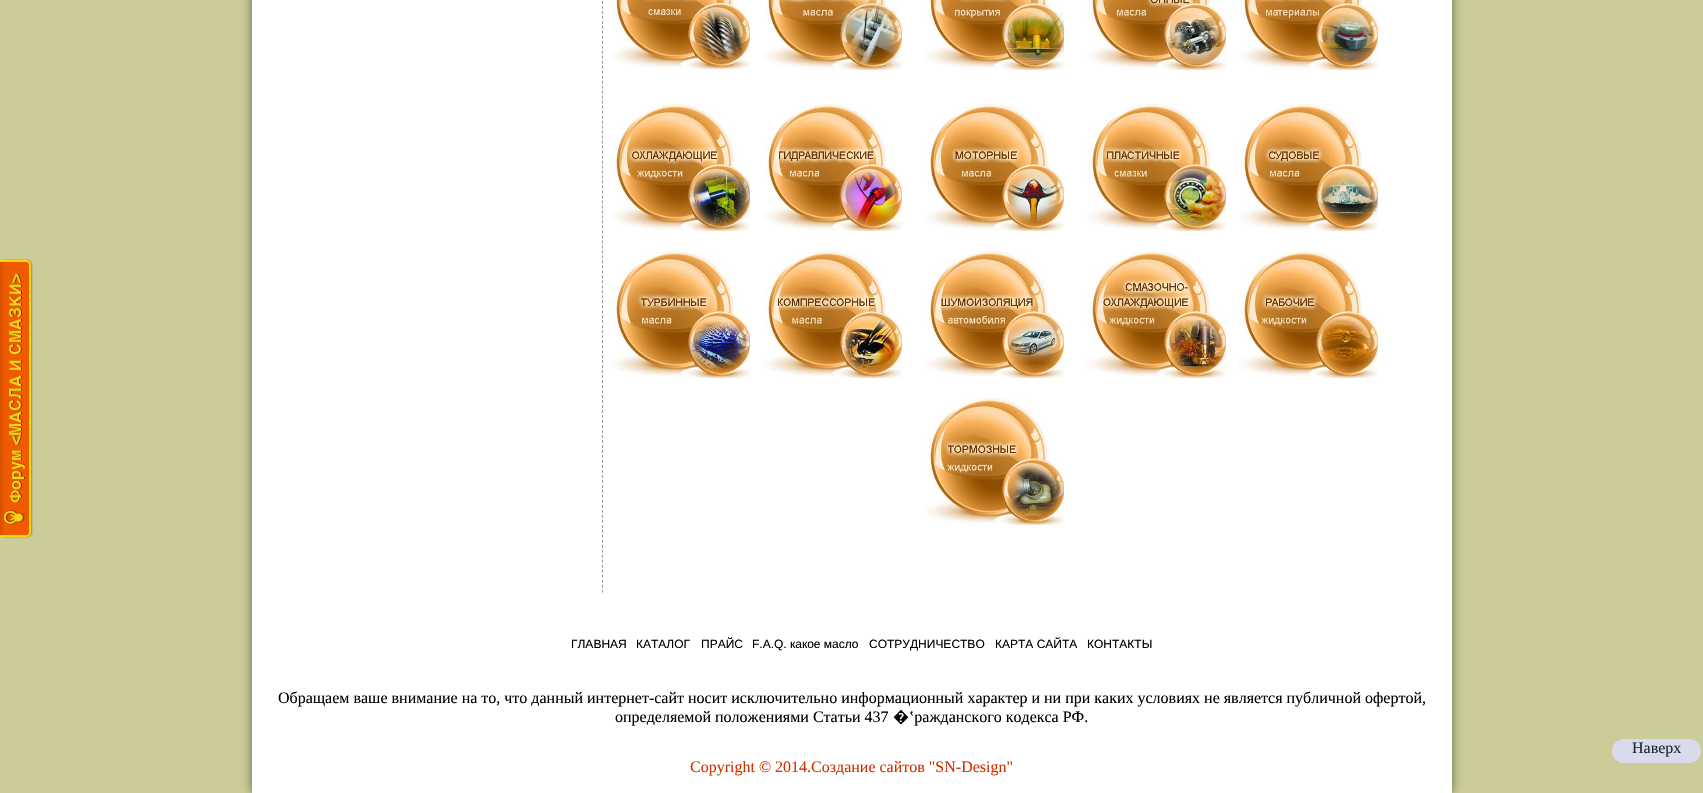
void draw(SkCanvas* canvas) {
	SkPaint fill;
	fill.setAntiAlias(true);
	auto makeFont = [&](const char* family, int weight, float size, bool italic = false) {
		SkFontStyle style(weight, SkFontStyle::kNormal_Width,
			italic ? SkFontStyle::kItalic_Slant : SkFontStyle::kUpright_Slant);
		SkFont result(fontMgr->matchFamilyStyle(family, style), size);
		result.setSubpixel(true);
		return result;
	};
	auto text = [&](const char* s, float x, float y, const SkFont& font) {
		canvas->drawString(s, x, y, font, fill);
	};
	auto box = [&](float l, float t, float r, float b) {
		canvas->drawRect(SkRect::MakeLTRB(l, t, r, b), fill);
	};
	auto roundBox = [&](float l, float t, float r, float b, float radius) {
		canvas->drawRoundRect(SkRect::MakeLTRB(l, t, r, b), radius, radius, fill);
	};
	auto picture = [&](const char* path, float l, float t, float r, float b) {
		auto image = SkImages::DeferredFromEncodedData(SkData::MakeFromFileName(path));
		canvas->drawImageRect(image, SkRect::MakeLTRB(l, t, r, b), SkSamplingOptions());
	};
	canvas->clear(0xFFCCCC99);
	fill.setColor(0xFF888888);
	fill.setMaskFilter(SkMaskFilter::MakeBlur(kNormal_SkBlurStyle, 1));
	canvas->drawRoundRect(SkRect::MakeLTRB(1, 260, 32, 537), 5, 5, fill);
	fill.setMaskFilter(nullptr);
	fill.setColor(0xFFF05A00);
	canvas->drawPath(SkPathBuilder().moveTo(0, 260).lineTo(26, 260).cubicTo(29, 260, 31, 262, 31, 265).lineTo(31, 532).cubicTo(31, 535, 29, 537, 26, 537).lineTo(0, 537).close().detach(), fill);
	picture("image0.png", 0, 262, 4, 535);
	fill.setColor(0xFFF2D516);
	canvas->drawPath(SkPathBuilder(SkPathFillType::kEvenOdd).moveTo(0, 260).lineTo(26, 260).cubicTo(29, 260, 31, 262, 31, 265).lineTo(31, 532).cubicTo(31, 535, 29, 537, 26, 537).lineTo(0, 537).close().moveTo(0, 262).lineTo(26, 262).cubicTo(28, 262, 29, 263, 29, 265).lineTo(29, 532).cubicTo(29, 534, 28, 535, 26, 535).lineTo(0, 535).close().detach(), fill);
	picture("image1.png", 4, 273, 25, 525);
	fill.setColor(0x80000000);
	fill.setMaskFilter(SkMaskFilter::MakeBlur(kNormal_SkBlurStyle, 5));
	canvas->drawRect(SkRect::MakeLTRB(252, -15, 1452, 793), fill);
	fill.setMaskFilter(nullptr);
	fill.setColor(0xFFFFFFFF);
	box(252, 0, 1452, 793);
	fill.setStyle(SkPaint::kStroke_Style);
	fill.setStrokeWidth(1);
	fill.setColor(0xFF999999);
	fill.setPathEffect(SkDashPathEffect::Make({{3, 1.99f}}, 0));
	canvas->drawPath(SkPathBuilder().moveTo(602.5f, -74).lineTo(602.5f, 593).detach(), fill);
	fill.setPathEffect(nullptr);
	picture("image2.png", 610, 0, 750, 69);
	picture("image3.png", 762, 0, 902, 70);
	picture("image4.png", 924, 0, 1064, 70);
	picture("image5.png", 1086, 0, 1226, 70);
	picture("image6.png", 1238, 0, 1378, 70);
	picture("image7.png", 610, 104, 750, 231);
	picture("image8.png", 762, 104, 902, 231);
	picture("image9.png", 924, 104, 1064, 231);
	picture("image10.png", 1086, 104, 1226, 231);
	picture("image11.png", 1238, 104, 1378, 231);
	picture("image12.png", 610, 251, 750, 378);
	picture("image13.png", 762, 251, 902, 378);
	picture("image14.png", 924, 251, 1064, 378);
	picture("image15.png", 1086, 251, 1226, 378);
	picture("image16.png", 1238, 251, 1378, 378);
	picture("image17.png", 924, 398, 1064, 525);
	fill.setStyle(SkPaint::kFill_Style);
	fill.setColor(0xFFD9DAEE);
	roundBox(1612, 739, 1701, 763, 12);
	auto font1 = makeFont("Liberation Sans", 400, 12);
	fill.setColor(0xFF000000);
	text("ГЛАВНАЯ", 571, 648, font1);
	text("КАТАЛОГ", 636, 648, font1);
	text("ПРАЙС", 701, 648, font1);
	text("F.A.Q. какое масло", 752, 648, font1);
	text("СОТРУДНИЧЕСТВО", 869, 648, font1);
	text("КАРТА САЙТА", 995, 648, font1);
	text("КОНТАКТЫ", 1087, 648, font1);
	auto font2 = makeFont("Liberation Serif", 400, 16);
	text("Обращаем ваше внимание на то, что данный интернет-сайт носит исключительно информационный характер и ни при каких условиях не является публичной офертой,", 278, 703, font2);
	text("определяемой положениями Статьи 437", 615, 722, font2);
	auto font3 = makeFont("Noto Sans", 400, 16);
	text("�", 893, 722, font3);
	text("‛ражданского кодекса РФ.", 909, 722, font2);
	fill.setColor(0xFFCC3300);
	text("Copyright © 2014.Создание сайтов \"SN-Design\"", 690, 772, font2);
	fill.setColor(0xFF1A2534);
	text("Наверх", 1632, 753, font2);
}
